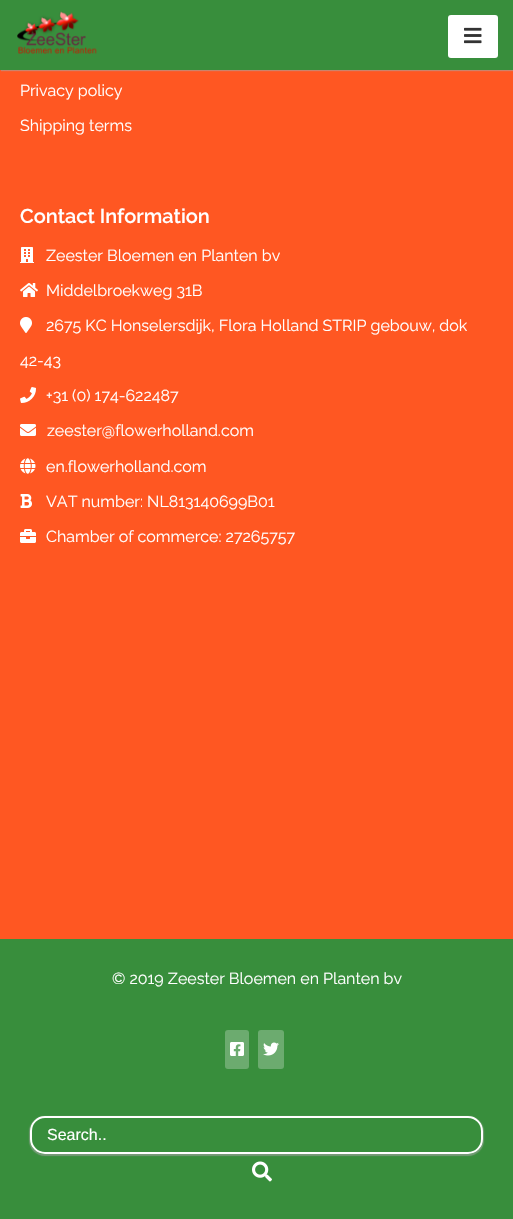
void draw(SkCanvas* canvas) {
	SkPaint fill;
	fill.setAntiAlias(true);
	auto makeFont = [&](const char* family, int weight, float size, bool italic = false) {
		SkFontStyle style(weight, SkFontStyle::kNormal_Width,
			italic ? SkFontStyle::kItalic_Slant : SkFontStyle::kUpright_Slant);
		SkFont result(fontMgr->matchFamilyStyle(family, style), size);
		result.setSubpixel(true);
		return result;
	};
	auto text = [&](const char* s, float x, float y, const SkFont& font) {
		canvas->drawString(s, x, y, font, fill);
	};
	auto box = [&](float l, float t, float r, float b) {
		canvas->drawRect(SkRect::MakeLTRB(l, t, r, b), fill);
	};
	auto roundBox = [&](float l, float t, float r, float b, float radius) {
		canvas->drawRoundRect(SkRect::MakeLTRB(l, t, r, b), radius, radius, fill);
	};
	auto picture = [&](const char* path, float l, float t, float r, float b) {
		auto image = SkImages::DeferredFromEncodedData(SkData::MakeFromFileName(path));
		canvas->drawImageRect(image, SkRect::MakeLTRB(l, t, r, b), SkSamplingOptions());
	};
	canvas->clear(0xFFFF5722);
	fill.setColor(0x91A3A3A3);
	fill.setMaskFilter(SkMaskFilter::MakeBlur(kNormal_SkBlurStyle, 0.5f));
	canvas->drawRect(SkRect::MakeLTRB(1, 1, 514, 71), fill);
	fill.setMaskFilter(nullptr);
	fill.setColor(0xFF388E3C);
	box(0, 0, 513, 70);
	picture("image0.png", 17, 11, 97, 54);
	fill.setColor(0xFFFFFFFF);
	roundBox(448, 15, 498, 58, 3);
	picture("image1.png", 464, 27, 482, 44);
	picture("image2.png", 20, 247, 34, 263);
	picture("image3.png", 20, 283, 38, 297);
	picture("image4.png", 20, 317, 32, 333);
	picture("image5.png", 20, 387, 36, 403);
	picture("image6.png", 20, 424, 36, 436);
	picture("image7.png", 20, 458, 36, 474);
	picture("image8.png", 20, 494, 32, 508);
	picture("image9.png", 20, 529, 36, 543);
	fill.setColor(0xFF388E3C);
	box(0, 939, 513, 1219);
	fill.setColor(0xFF6CAB6F);
	roundBox(225, 1030, 249, 1069, 3);
	picture("image10.png", 230, 1042, 244, 1056);
	roundBox(258, 1030, 284, 1069, 3);
	picture("image11.png", 263, 1042, 279, 1056);
	canvas->save();
	canvas->clipPath(SkPathBuilder(SkPathFillType::kEvenOdd).moveTo(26, 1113).lineTo(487, 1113).lineTo(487, 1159).lineTo(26, 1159).close().moveTo(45, 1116).lineTo(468, 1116).cubicTo(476.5f, 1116, 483, 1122.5f, 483, 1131).lineTo(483, 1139).cubicTo(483, 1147.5f, 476.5f, 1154, 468, 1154).lineTo(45, 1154).cubicTo(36.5f, 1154, 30, 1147.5f, 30, 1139).lineTo(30, 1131).cubicTo(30, 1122.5f, 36.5f, 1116, 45, 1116).close().detach(), true);
	fill.setColor(0x91A3A3A3);
	fill.setMaskFilter(SkMaskFilter::MakeBlur(kNormal_SkBlurStyle, 0.5f));
	canvas->drawRoundRect(SkRect::MakeLTRB(29, 1116, 484, 1156), 16, 16, fill);
	fill.setMaskFilter(nullptr);
	canvas->restore();
	fill.setStyle(SkPaint::kStroke_Style);
	fill.setStrokeWidth(2);
	fill.setColor(0xFFFFFFFF);
	canvas->drawRoundRect(SkRect::MakeLTRB(31, 1117, 482, 1153), 14, 14, fill);
	picture("image12.png", 252, 1161, 272, 1182);
	auto font1 = makeFont("Raleway", 400, 16);
	fill.setStyle(SkPaint::kFill_Style);
	text("Privacy policy", 20, 96, font1);
	text("Shipping terms", 20, 131, font1);
	auto font2 = makeFont("Raleway", 600, 20);
	text("Contact Information", 20, 223, font2);
	text("Zeester Bloemen en Planten bv", 46, 261, font1);
	text("Middelbroekweg 31B", 46, 296, font1);
	text("2675 KC Honselersdijk, Flora Holland STRIP gebouw, dok", 46, 331, font1);
	text("42-43", 20, 366, font1);
	text("+31 (0) 174-622487", 46, 401, font1);
	text("zeester@flowerholland.com", 47, 436, font1);
	text("en.flowerholland.com", 46, 472, font1);
	text("VAT number: NL813140699B01", 46, 507, font1);
	text("Chamber of commerce: 27265757", 46, 542, font1);
	text("© 2019 Zeester Bloemen en Planten bv", 112, 984, font1);
	auto font3 = makeFont("Liberation Sans", 400, 16);
	text("Search..", 47, 1140, font3);
}
